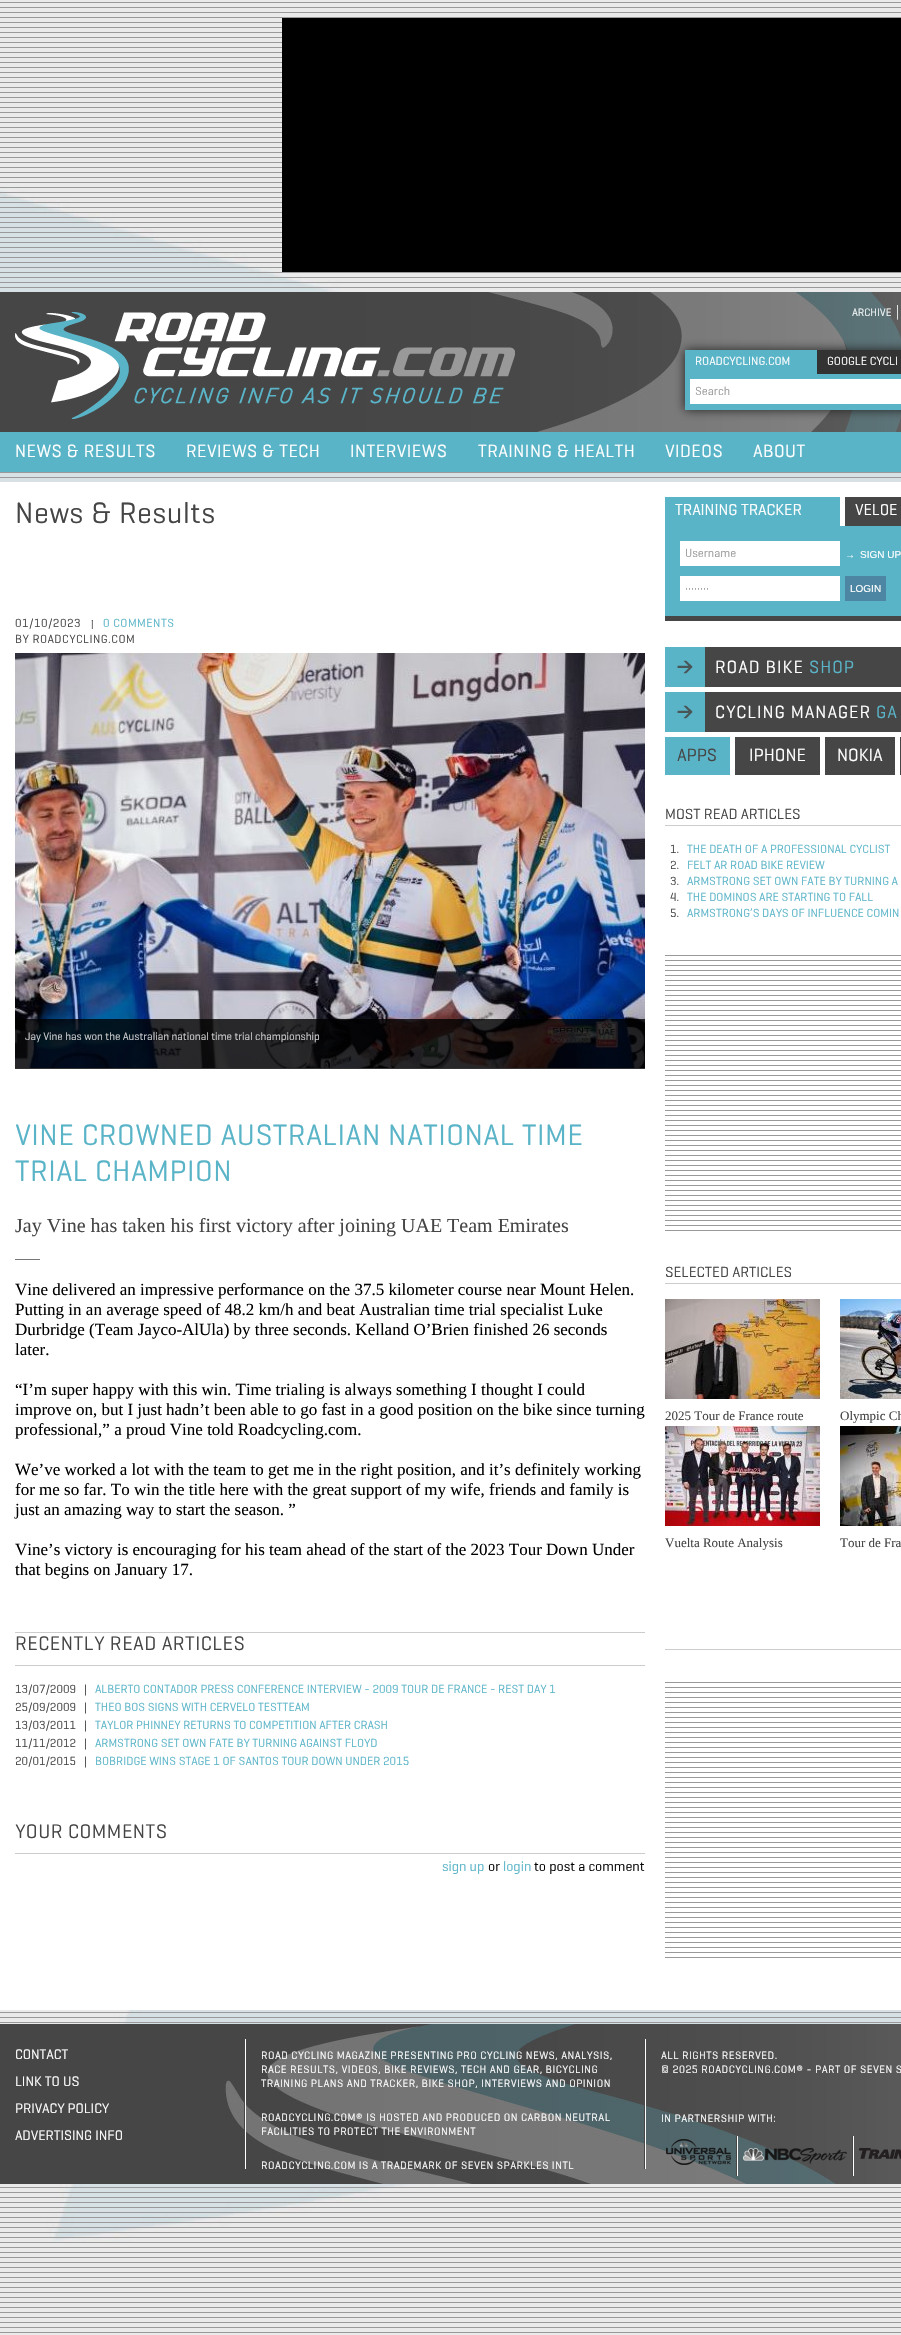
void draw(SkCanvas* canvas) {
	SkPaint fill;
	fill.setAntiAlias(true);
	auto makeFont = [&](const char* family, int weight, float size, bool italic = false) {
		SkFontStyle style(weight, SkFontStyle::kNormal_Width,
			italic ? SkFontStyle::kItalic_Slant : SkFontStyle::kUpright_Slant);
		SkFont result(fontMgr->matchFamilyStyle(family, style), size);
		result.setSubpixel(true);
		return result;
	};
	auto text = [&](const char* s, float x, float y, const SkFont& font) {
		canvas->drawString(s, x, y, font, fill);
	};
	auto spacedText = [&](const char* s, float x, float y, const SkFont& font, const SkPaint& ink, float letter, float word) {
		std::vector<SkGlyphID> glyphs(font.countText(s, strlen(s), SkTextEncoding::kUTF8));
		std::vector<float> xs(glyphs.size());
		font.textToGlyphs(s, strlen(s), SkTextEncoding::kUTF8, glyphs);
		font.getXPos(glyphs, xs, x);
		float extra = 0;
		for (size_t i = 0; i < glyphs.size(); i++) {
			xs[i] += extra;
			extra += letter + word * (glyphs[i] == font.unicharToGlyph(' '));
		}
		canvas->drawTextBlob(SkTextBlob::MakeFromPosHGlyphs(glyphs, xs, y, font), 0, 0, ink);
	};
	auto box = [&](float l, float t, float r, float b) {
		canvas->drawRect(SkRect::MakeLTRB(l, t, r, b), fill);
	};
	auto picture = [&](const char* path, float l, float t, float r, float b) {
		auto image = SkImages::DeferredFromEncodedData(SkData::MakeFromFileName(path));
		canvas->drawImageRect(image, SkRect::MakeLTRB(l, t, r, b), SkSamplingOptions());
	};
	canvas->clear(0xFFFFFFFF);
	picture("image0.png", 0, 0, 901, 2335);
	fill.setColor(0xFF000000);
	box(282, 18, 901, 272);
	picture("image1.png", 0, 292, 901, 432);
	picture("image2.png", 15, 312, 515, 419);
	fill.setColor(0xFF222222);
	fill.setMaskFilter(SkMaskFilter::MakeBlur(kNormal_SkBlurStyle, 5));
	canvas->drawRect(SkRect::MakeLTRB(685, 350, 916, 410), fill);
	fill.setMaskFilter(nullptr);
	fill.setColor(0xFF5AB4C8);
	box(685, 350, 901, 410);
	fill.setColor(0xFF333333);
	box(817, 350, 901, 374);
	fill.setColor(0xFFFFFFFF);
	box(690, 379, 901, 404);
	fill.setColor(0xFF5AB4C8);
	box(0, 432, 901, 472);
	fill.setColor(0xFFFFFFFF);
	box(0, 482, 901, 2010);
	picture("image3.png", 15, 653, 645, 1068);
	fill.setColor(0xCC000000);
	box(15, 1019, 645, 1069);
	fill.setColor(0xFF777777);
	box(15, 1259, 40, 1260);
	fill.setColor(0xFFCCCCCC);
	box(15, 1632, 645, 1633);
	box(15, 1665, 645, 1666);
	box(15, 1853, 645, 1854);
	fill.setColor(0xFF5AB4C8);
	box(665, 497, 840, 526);
	fill.setColor(0xFF464646);
	box(845, 497, 901, 526);
	fill.setColor(0xFF5AB4C8);
	box(665, 526, 901, 616);
	fill.setColor(0xFF464646);
	box(665, 616, 901, 621);
	fill.setColor(0xFFFFFFFF);
	box(680, 541, 840, 566);
	box(680, 576, 840, 601);
	fill.setColor(0xFF4C86A2);
	box(845, 576, 886, 601);
	fill.setColor(0xFF464646);
	box(705, 647, 901, 687);
	picture("image4.png", 665, 647, 705, 687);
	box(705, 692, 901, 732);
	picture("image4.png", 665, 692, 705, 732);
	fill.setColor(0xFF5AB4C8);
	box(665, 737, 730, 775);
	fill.setColor(0xFF464646);
	box(735, 737, 820, 775);
	box(825, 737, 895, 775);
	box(900, 737, 901, 775);
	fill.setColor(0xFFCCCCCC);
	box(665, 825, 901, 826);
	picture("image5.png", 665, 955, 901, 1231);
	box(665, 1283, 901, 1284);
	box(665, 1649, 901, 1650);
	picture("image6.png", 665, 1299, 820, 1399);
	picture("image7.png", 840, 1299, 901, 1399);
	picture("image8.png", 665, 1426, 820, 1526);
	picture("image9.png", 840, 1426, 901, 1526);
	picture("image5.png", 665, 1682, 901, 1958);
	picture("image10.png", 0, 2024, 901, 2184);
	fill.setColor(0xFF464646);
	box(244, 2096, 245, 2135);
	box(644, 2039, 645, 2169);
	fill.setColor(0xFFFFFFFF);
	box(245, 2039, 246, 2169);
	box(645, 2039, 646, 2169);
	fill.setColor(0xFF464646);
	box(736, 2136, 737, 2176);
	picture("image11.png", 666, 2139, 731, 2165);
	box(852, 2136, 853, 2176);
	fill.setColor(0xFFFFFFFF);
	box(737, 2136, 738, 2176);
	picture("image12.png", 743, 2148, 847, 2164);
	box(853, 2136, 854, 2176);
	picture("image13.png", 859, 2148, 901, 2159);
	auto font1 = makeFont("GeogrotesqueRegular", 400, 11);
	fill.setColor(0xFFF3F8F9);
	text("ARCHIVE", 852, 316, font1);
	auto font2 = makeFont("Liberation Serif", 400, 16);
	text("|", 896, 316, font2);
	auto font3 = makeFont("GeogrotesqueRegular", 400, 12);
	fill.setColor(0xFFFFFFFF);
	text("ROADCYCLING.COM", 695, 365, font3);
	text("GOOGLE CYCLI", 827, 365, font3);
	fill.setColor(0xFF989898);
	text("Search", 695, 395, font3);
	auto font4 = makeFont("GeogrotesqueRegular", 400, 18);
	fill.setColor(0xFFFFFFFF);
	spacedText("NEWS & RESULTS", 15, 457, font4, fill, 0.5f, 0);
	spacedText("REVIEWS & TECH", 186, 457, font4, fill, 0.5f, 0);
	spacedText("INTERVIEWS", 350, 457, font4, fill, 0.5f, 0);
	spacedText("TRAINING & HEALTH", 478, 457, font4, fill, 0.5f, 0);
	spacedText("VIDEOS", 665, 457, font4, fill, 0.5f, 0);
	spacedText("ABOUT", 753, 457, font4, fill, 0.5f, 0);
	auto font5 = makeFont("GeogrotesqueRegular", 400, 30);
	fill.setColor(0xFF454545);
	spacedText("News & Results", 15, 523, font5, fill, 0.5f, 0);
	spacedText("01/10/2023", 15, 627, font3, fill, 0.5f, 0);
	auto font6 = makeFont("GeogrotesqueRegular", 400, 10);
	text("|", 91, 627, font6);
	fill.setColor(0xFF5AB4C8);
	spacedText("0 COMMENTS", 103, 627, font3, fill, 0.5f, 0);
	fill.setColor(0xFF454545);
	spacedText("BY ROADCYCLING.COM", 15, 643, font3, fill, 0.5f, 0);
	fill.setColor(0xFFD0D1D2);
	text("Jay Vine has won the Australian national time trial championship", 25, 1040, font1);
	fill.setColor(0xFF5AB4C8);
	spacedText("VINE CROWNED AUSTRALIAN NATIONAL TIME", 15, 1145, font5, fill, 0.5f, 0);
	spacedText("TRIAL CHAMPION", 15, 1181, font5, fill, 0.5f, 0);
	auto font7 = makeFont("Liberation Serif", 400, 20);
	fill.setColor(0xFF454545);
	text("Jay Vine has taken his first victory after joining UAE Team Emirates", 15, 1232, font7);
	auto font8 = makeFont("Liberation Serif", 400, 17);
	fill.setColor(0xFF000000);
	text("Vine delivered an impressive performance on the 37.5 kilometer course near Mount Helen.", 15, 1295, font8);
	text("Putting in an average speed of 48.2 km/h and beat Australian time trial specialist Luke", 15, 1315, font8);
	text("Durbridge (Team Jayco-AlUla) by three seconds. Kelland O’Brien finished 26 seconds", 15, 1335, font8);
	text("later.", 15, 1355, font8);
	text("“I’m super happy with this win. Time trialing is always something I thought I could", 15, 1395, font8);
	text("improve on, but I just hadn’t been able to go fast in a good position on the bike since turning", 15, 1415, font8);
	text("professional,” a proud Vine told Roadcycling.com.", 15, 1435, font8);
	text("We’ve worked a lot with the team to get me in the right position, and it’s definitely working", 15, 1475, font8);
	text("for me so far. To win the title here with the great support of my wife, friends and family is", 15, 1495, font8);
	text("just an amazing way to start the season. ”", 15, 1515, font8);
	text("Vine’s victory is encouraging for his team ahead of the start of the 2023 Tour Down Under", 15, 1555, font8);
	text("that begins on January 17.", 15, 1575, font8);
	auto font9 = makeFont("GeogrotesqueRegular", 400, 20);
	fill.setColor(0xFF454545);
	spacedText("RECENTLY READ ARTICLES", 15, 1650, font9, fill, 0.5f, 0);
	text("13/07/2009", 15, 1693, font3);
	text("|", 84, 1693, font3);
	fill.setColor(0xFF5AB4C8);
	text("ALBERTO CONTADOR PRESS CONFERENCE INTERVIEW - 2009 TOUR DE FRANCE - REST DAY 1", 95, 1693, font3);
	fill.setColor(0xFF454545);
	text("25/09/2009", 15, 1711, font3);
	text("|", 84, 1711, font3);
	fill.setColor(0xFF5AB4C8);
	text("THEO BOS SIGNS WITH CERVELO TESTTEAM", 95, 1711, font3);
	fill.setColor(0xFF454545);
	text("13/03/2011", 15, 1729, font3);
	text("|", 84, 1729, font3);
	fill.setColor(0xFF5AB4C8);
	text("TAYLOR PHINNEY RETURNS TO COMPETITION AFTER CRASH", 95, 1729, font3);
	fill.setColor(0xFF454545);
	text("11/11/2012", 15, 1747, font3);
	text("|", 84, 1747, font3);
	fill.setColor(0xFF5AB4C8);
	text("ARMSTRONG SET OWN FATE BY TURNING AGAINST FLOYD", 95, 1747, font3);
	fill.setColor(0xFF454545);
	text("20/01/2015", 15, 1765, font3);
	text("|", 84, 1765, font3);
	fill.setColor(0xFF5AB4C8);
	text("BOBRIDGE WINS STAGE 1 OF SANTOS TOUR DOWN UNDER 2015", 95, 1765, font3);
	fill.setColor(0xFF454545);
	spacedText("YOUR COMMENTS", 15, 1838, font9, fill, 0.5f, 0);
	auto font10 = makeFont("GeogrotesqueRegular", 400, 14);
	fill.setColor(0xFF5AB4C8);
	text("sign up", 442, 1871, font10);
	fill.setColor(0xFF000000);
	text("or", 488, 1871, font10);
	fill.setColor(0xFF5AB4C8);
	text("login", 503, 1871, font10);
	fill.setColor(0xFF000000);
	text("to post a comment", 534, 1871, font10);
	auto font11 = makeFont("GeogrotesqueRegular", 400, 16);
	fill.setColor(0xFFFFFFFF);
	text("TRAINING TRACKER", 675, 515, font11);
	text("VELOE", 855, 515, font11);
	fill.setColor(0xFF989898);
	text("Username", 685, 557, font3);
	text("••••••••", 685, 592, font3);
	auto font12 = makeFont("Liberation Sans", 400, 10);
	fill.setColor(0xFFFFFFFF);
	text("LOGIN", 850, 592, font12);
	text("→", 845, 558, font12);
	text("SIGN UP", 860, 558, font12);
	spacedText("ROAD BIKE", 715, 673, font4, fill, 1, 0);
	fill.setColor(0xFF5AB4C8);
	spacedText("SHOP", 809, 673, font4, fill, 1, 0);
	fill.setColor(0xFFFFFFFF);
	spacedText("CYCLING MANAGER", 715, 718, font4, fill, 1, 0);
	fill.setColor(0xFF5AB4C8);
	spacedText("GA", 876, 718, font4, fill, 1, 0);
	fill.setColor(0xFF454545);
	text("APPS", 677, 761, font4);
	fill.setColor(0xFFFFFFFF);
	text("IPHONE", 749, 761, font4);
	text("NOKIA", 837, 761, font4);
	auto font13 = makeFont("GeogrotesqueRegular", 400, 15);
	fill.setColor(0xFF454545);
	text("MOST READ ARTICLES", 665, 819, font13);
	text("1.", 670, 853, font3);
	fill.setColor(0xFF5AB4C8);
	text("THE DEATH OF A PROFESSIONAL CYCLIST", 687, 853, font3);
	fill.setColor(0xFF454545);
	text("2.", 670, 869, font3);
	fill.setColor(0xFF5AB4C8);
	text("FELT AR ROAD BIKE REVIEW", 687, 869, font3);
	fill.setColor(0xFF454545);
	text("3.", 670, 885, font3);
	fill.setColor(0xFF5AB4C8);
	text("ARMSTRONG SET OWN FATE BY TURNING A", 687, 885, font3);
	fill.setColor(0xFF454545);
	text("4.", 670, 901, font3);
	fill.setColor(0xFF5AB4C8);
	text("THE DOMINOS ARE STARTING TO FALL", 687, 901, font3);
	fill.setColor(0xFF454545);
	text("5.", 670, 917, font3);
	fill.setColor(0xFF5AB4C8);
	text("ARMSTRONG’S DAYS OF INFLUENCE COMIN", 687, 917, font3);
	fill.setColor(0xFF454545);
	text("SELECTED ARTICLES", 665, 1277, font13);
	auto font14 = makeFont("Liberation Serif", 400, 13);
	text("2025 Tour de France route", 665, 1420, font14);
	text("Olympic Ch", 840, 1420, font14);
	text("Vuelta Route Analysis", 665, 1547, font14);
	text("Tour de Fra", 840, 1547, font14);
	fill.setColor(0xFFFFFFFF);
	text("CONTACT", 15, 2059, font10);
	text("LINK TO US", 15, 2086, font10);
	text("PRIVACY POLICY", 15, 2113, font10);
	text("ADVERTISING INFO", 15, 2140, font10);
	spacedText("ROAD CYCLING MAGAZINE PRESENTING PRO CYCLING NEWS, ANALYSIS,", 261, 2059, font1, fill, 0.5f, 0);
	spacedText("RACE RESULTS, VIDEOS, BIKE REVIEWS, TECH AND GEAR, BICYCLING", 261, 2073, font1, fill, 0.5f, 0);
	spacedText("TRAINING PLANS AND TRACKER, BIKE SHOP, INTERVIEWS AND OPINION", 261, 2087, font1, fill, 0.5f, 0);
	spacedText("ROADCYCLING.COM® IS HOSTED AND PRODUCED ON CARBON NEUTRAL", 261, 2121, font1, fill, 0.5f, 0);
	spacedText("FACILITIES TO PROTECT THE ENVIRONMENT", 261, 2135, font1, fill, 0.5f, 0);
	spacedText("ROADCYCLING.COM IS A TRADEMARK OF SEVEN SPARKLES INTL", 261, 2169, font1, fill, 0.5f, 0);
	spacedText("ALL RIGHTS RESERVED.", 661, 2059, font1, fill, 0.5f, 0);
	spacedText("© 2025 ROADCYCLING.COM® - PART OF SEVEN S", 661, 2073, font1, fill, 0.5f, 0);
	spacedText("IN PARTNERSHIP WITH:", 661, 2122, font1, fill, 0.5f, 0);
}
